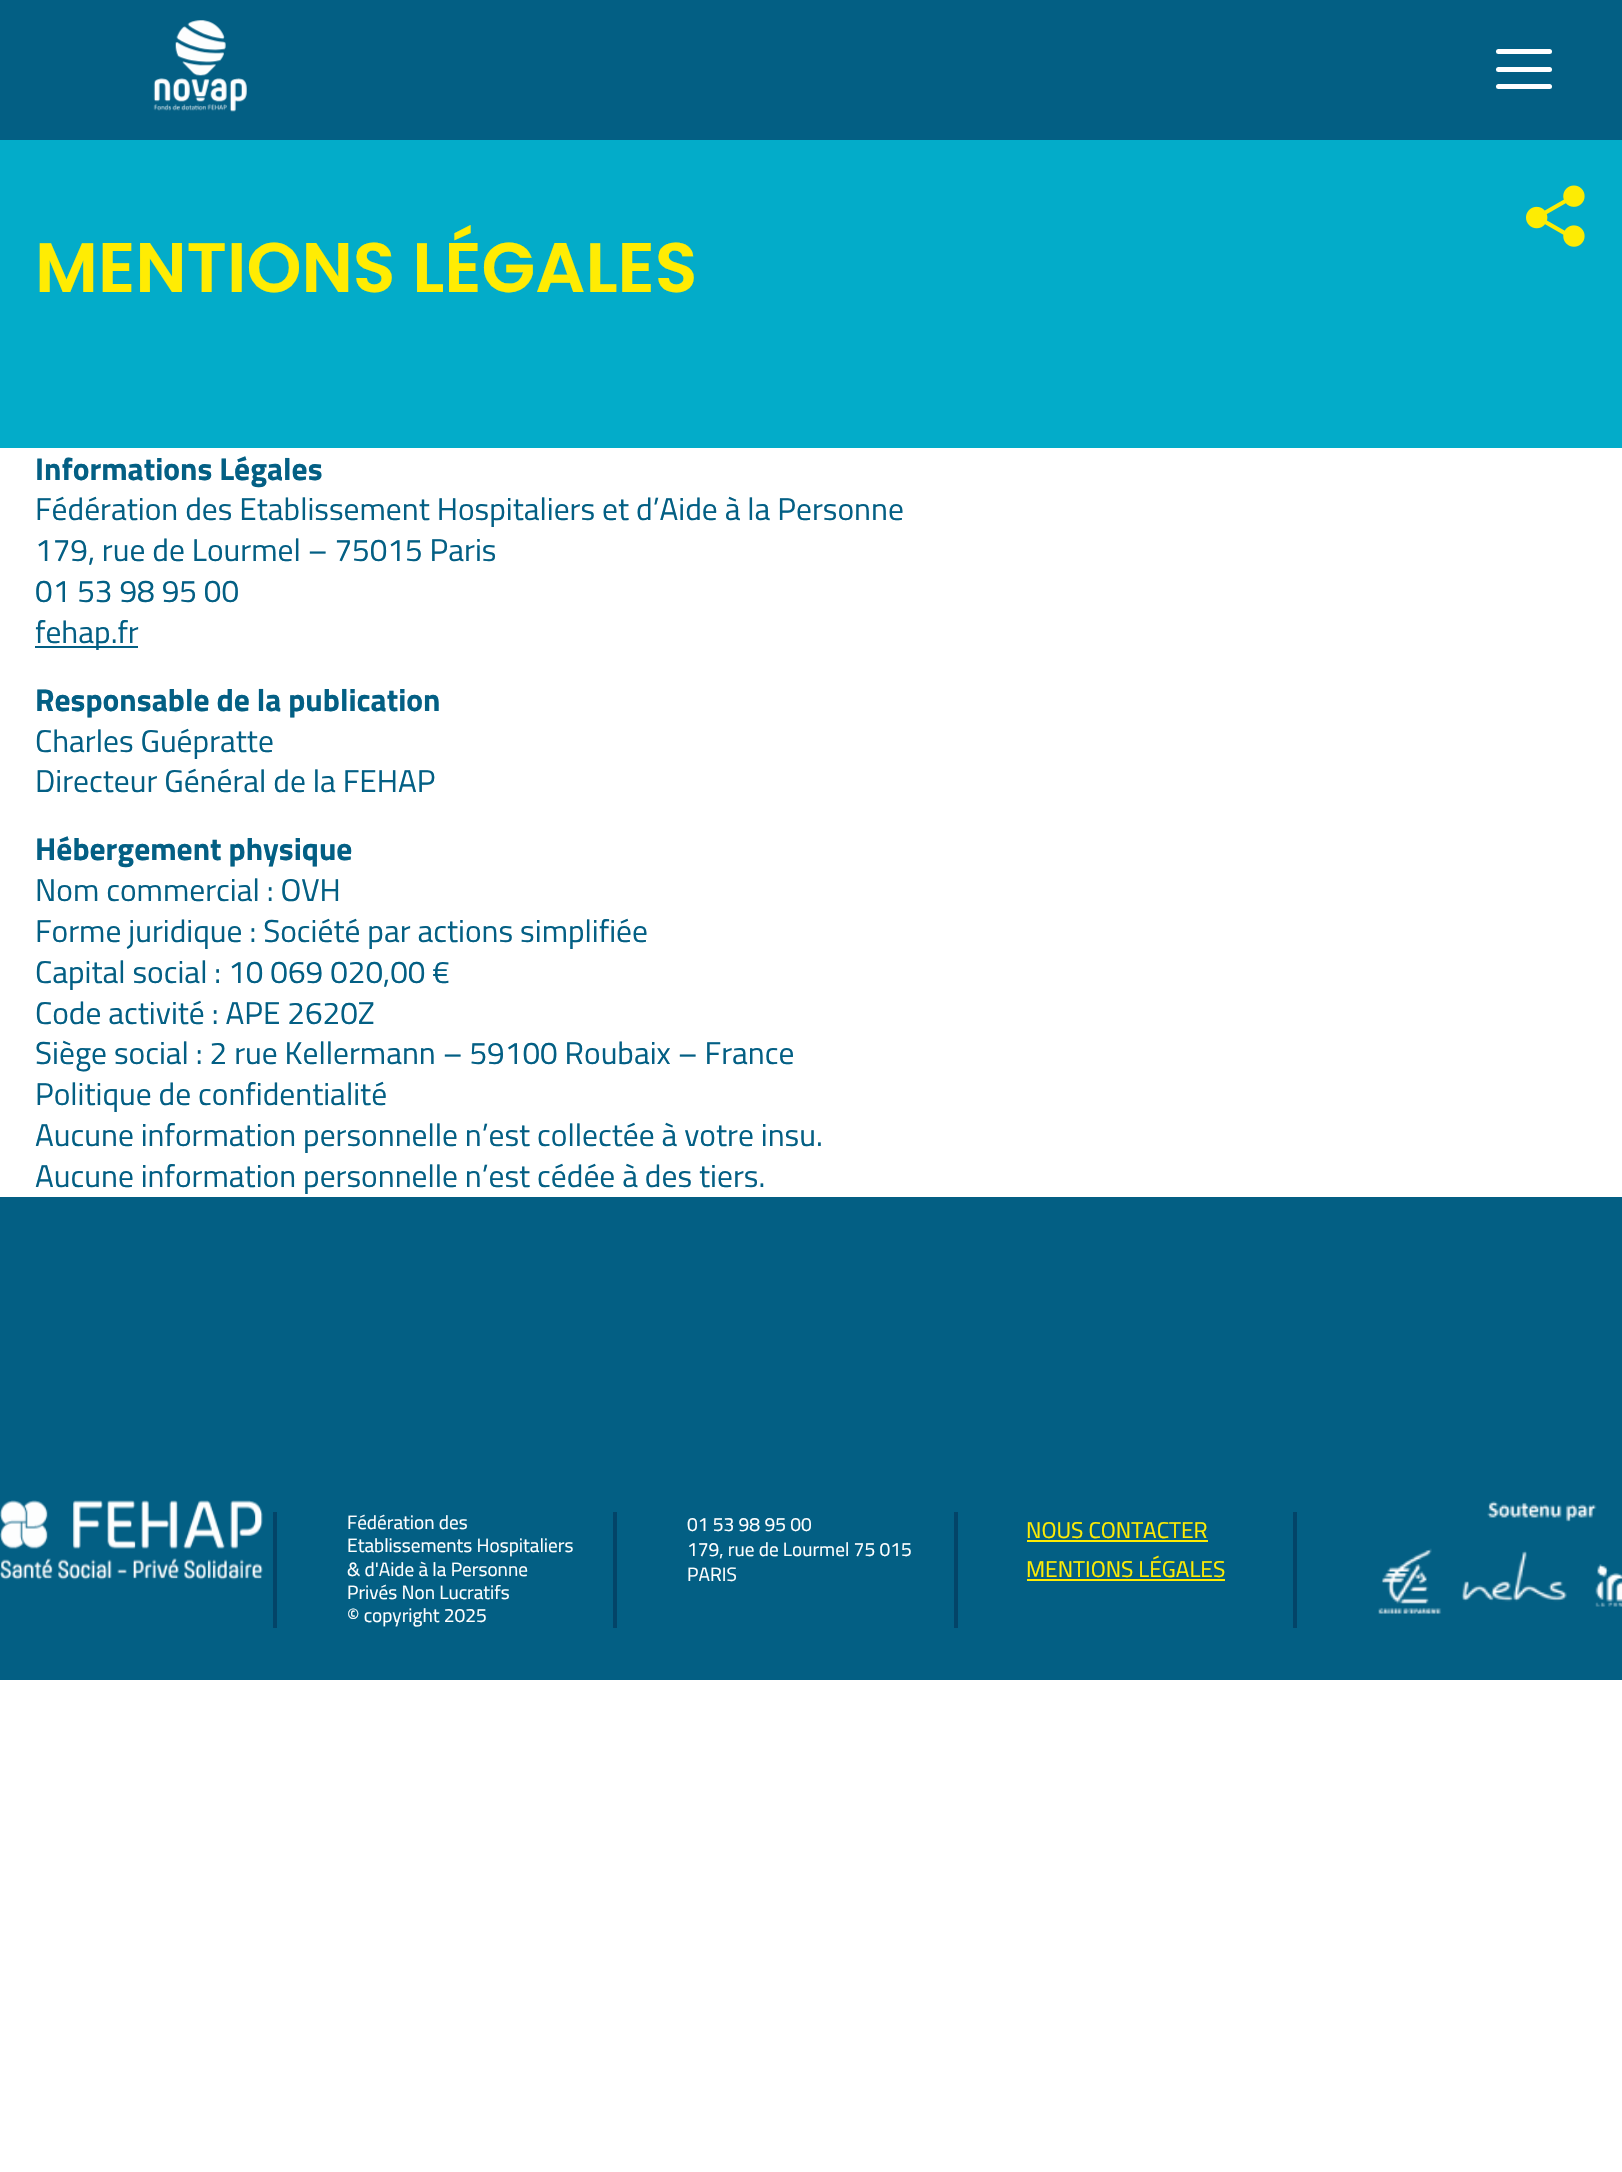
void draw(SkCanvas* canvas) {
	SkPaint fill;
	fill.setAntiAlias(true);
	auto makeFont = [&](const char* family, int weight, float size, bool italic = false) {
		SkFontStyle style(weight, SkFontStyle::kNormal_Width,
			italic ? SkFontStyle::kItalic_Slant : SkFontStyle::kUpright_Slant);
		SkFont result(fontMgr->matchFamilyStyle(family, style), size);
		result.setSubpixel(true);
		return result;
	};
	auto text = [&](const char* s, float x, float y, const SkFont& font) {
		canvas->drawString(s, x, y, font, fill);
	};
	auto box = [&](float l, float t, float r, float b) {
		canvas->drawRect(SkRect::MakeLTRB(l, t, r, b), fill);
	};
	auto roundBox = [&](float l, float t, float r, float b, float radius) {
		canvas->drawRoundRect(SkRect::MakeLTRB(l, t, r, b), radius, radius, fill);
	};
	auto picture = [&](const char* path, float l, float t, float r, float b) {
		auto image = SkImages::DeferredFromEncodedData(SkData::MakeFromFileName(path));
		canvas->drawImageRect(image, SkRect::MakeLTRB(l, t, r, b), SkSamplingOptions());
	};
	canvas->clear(0xFFFFFFFF);
	fill.setColor(0xFF035F84);
	box(0, 0, 1622, 140);
	picture("image0.png", 153, 20, 247, 112);
	fill.setColor(0xFFFFFFFF);
	roundBox(1496, 67, 1552, 72, 2.5f);
	roundBox(1496, 49, 1552, 54, 2.5f);
	roundBox(1496, 84, 1552, 89, 2.5f);
	fill.setColor(0xFF03ACC9);
	box(0, 140, 1622, 448);
	picture("image1.png", 1526, 185, 1585, 247);
	fill.setColor(0xFF035F84);
	box(35, 646, 138, 648);
	box(0, 1197, 1622, 1680);
	picture("image2.png", 0, 1500, 263, 1580);
	fill.setColor(0xFF034468);
	box(273, 1512, 277, 1628);
	box(613, 1512, 617, 1628);
	box(954, 1512, 958, 1628);
	fill.setColor(0xFFFFEC03);
	box(1027, 1540, 1208, 1542);
	box(1027, 1579, 1225, 1581);
	fill.setColor(0xFF034468);
	box(1293, 1512, 1297, 1628);
	picture("image3.png", 1378, 1501, 1622, 1614);
	auto font1 = makeFont("Poppins", 600, 70);
	fill.setColor(0xFFFFEC03);
	text("MENTIONS LÉGALES", 35, 292, font1);
	auto font2 = makeFont("Titillium Web", 700, 31.5f);
	fill.setColor(0xFF035F84);
	text("Informations Légales", 35, 480, font2);
	auto font3 = makeFont("Titillium Web", 400, 31.5f);
	text("Fédération des Etablissement Hospitaliers et d’Aide à la Personne", 35, 520, font3);
	text("179, rue de Lourmel – 75015 Paris", 35, 561, font3);
	text("01 53 98 95 00", 35, 602, font3);
	text("fehap.fr", 35, 643, font3);
	text("Responsable de la publication", 35, 711, font2);
	text("Charles Guépratte", 35, 752, font3);
	text("Directeur Général de la FEHAP", 35, 792, font3);
	text("Hébergement physique", 35, 860, font2);
	text("Nom commercial : OVH", 35, 901, font3);
	text("Forme juridique : Société par actions simplifiée", 35, 942, font3);
	text("Capital social : 10 069 020,00 €", 35, 983, font3);
	text("Code activité : APE 2620Z", 35, 1024, font3);
	text("Siège social : 2 rue Kellermann – 59100 Roubaix – France", 35, 1064, font3);
	text("Politique de confidentialité", 35, 1105, font3);
	text("Aucune information personnelle n’est collectée à votre insu.", 35, 1146, font3);
	text("Aucune information personnelle n’est cédée à des tiers.", 35, 1187, font3);
	auto font4 = makeFont("Titillium Web", 400, 19.25f);
	fill.setColor(0xFFFFFFFF);
	text("Fédération des", 347, 1529, font4);
	text("Etablissements Hospitaliers", 347, 1552, font4);
	text("& d'Aide à la Personne", 347, 1576, font4);
	text("Privés Non Lucratifs", 347, 1599, font4);
	text("© copyright 2025", 347, 1622, font4);
	text("01 53 98 95 00", 687, 1531, font4);
	text("179, rue de Lourmel 75 015", 687, 1556, font4);
	text("PARIS", 687, 1581, font4);
	auto font5 = makeFont("Titillium Web", 400, 22.75f);
	fill.setColor(0xFFFFEC03);
	text("NOUS CONTACTER", 1026, 1538, font5);
	text("MENTIONS LÉGALES", 1026, 1577, font5);
}
